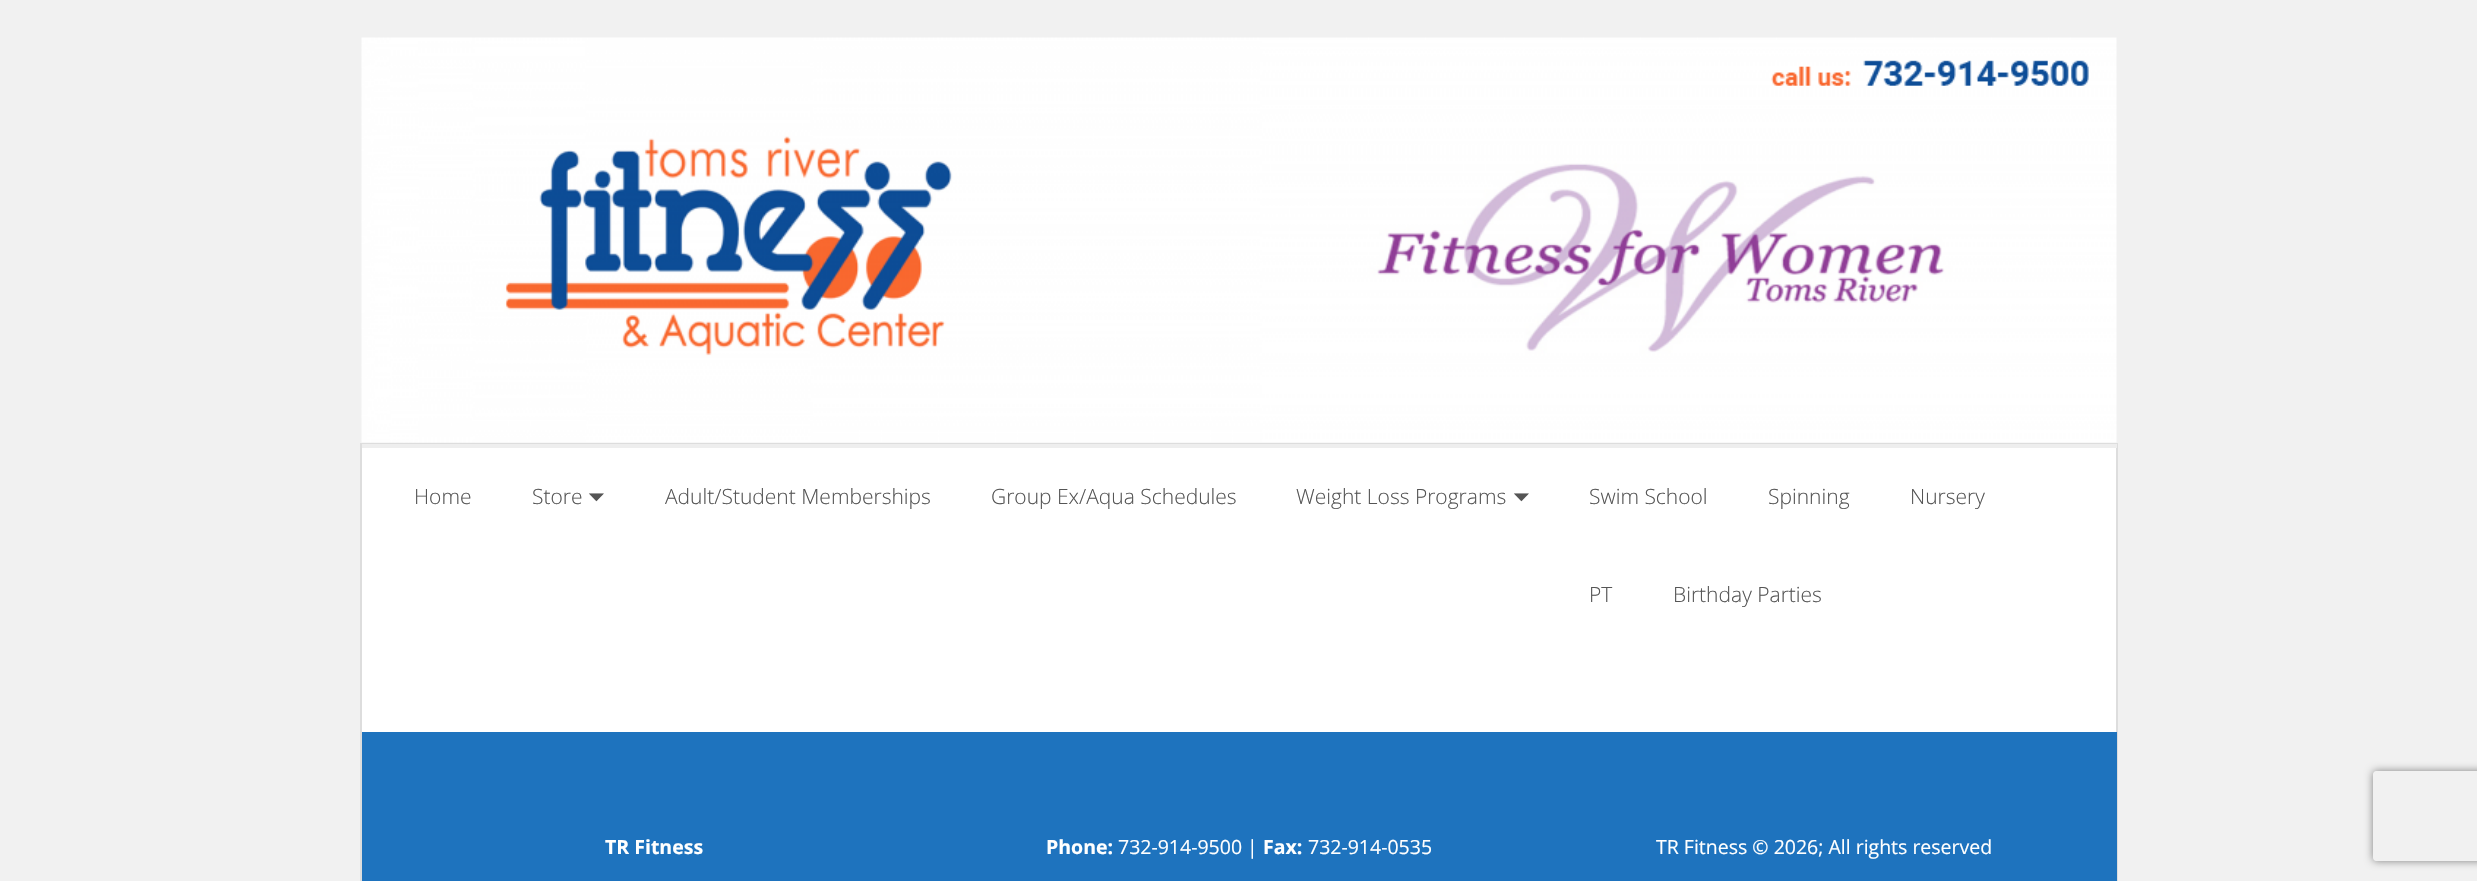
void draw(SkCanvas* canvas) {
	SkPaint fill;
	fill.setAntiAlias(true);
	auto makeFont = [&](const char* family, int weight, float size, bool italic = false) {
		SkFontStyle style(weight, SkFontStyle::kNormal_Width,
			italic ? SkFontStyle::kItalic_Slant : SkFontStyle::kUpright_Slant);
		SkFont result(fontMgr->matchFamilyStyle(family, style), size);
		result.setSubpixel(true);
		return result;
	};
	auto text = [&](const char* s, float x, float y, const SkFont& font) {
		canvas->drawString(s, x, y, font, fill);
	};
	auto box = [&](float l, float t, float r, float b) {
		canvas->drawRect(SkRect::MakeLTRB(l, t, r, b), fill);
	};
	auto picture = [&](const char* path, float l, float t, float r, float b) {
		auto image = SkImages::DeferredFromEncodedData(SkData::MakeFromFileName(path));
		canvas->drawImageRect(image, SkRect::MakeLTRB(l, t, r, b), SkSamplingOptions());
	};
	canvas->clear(0xFFF1F1F1);
	picture("image0.png", 361, 37, 2117, 443);
	fill.setColor(0xFFFFFFFF);
	box(362, 448, 2116, 732);
	fill.setStyle(SkPaint::kStroke_Style);
	fill.setStrokeWidth(2);
	fill.setColor(0xFFDDDDDD);
	canvas->drawRect(SkRect::MakeLTRB(361, 444, 2117, 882), fill);
	fill.setStyle(SkPaint::kFill_Style);
	fill.setColor(0xFFEEEEEE);
	box(362, 444, 2117, 448);
	fill.setColor(0xFF1E73BE);
	box(362, 732, 2117, 881);
	canvas->save();
	canvas->clipPath(SkPathBuilder(SkPathFillType::kEvenOdd).moveTo(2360, 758).lineTo(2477, 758).lineTo(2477, 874).lineTo(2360, 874).close().moveTo(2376, 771).lineTo(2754, 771).cubicTo(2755.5f, 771, 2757, 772.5f, 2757, 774).lineTo(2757, 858).cubicTo(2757, 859.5f, 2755.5f, 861, 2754, 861).lineTo(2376, 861).cubicTo(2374.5f, 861, 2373, 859.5f, 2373, 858).lineTo(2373, 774).cubicTo(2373, 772.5f, 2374.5f, 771, 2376, 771).close().detach(), true);
	fill.setColor(0xFF808080);
	fill.setMaskFilter(SkMaskFilter::MakeBlur(kNormal_SkBlurStyle, 4));
	canvas->drawRoundRect(SkRect::MakeLTRB(2373, 771, 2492, 861), 3, 3, fill);
	fill.setMaskFilter(nullptr);
	canvas->restore();
	auto font1 = makeFont("Open Sans", 300, 21);
	fill.setColor(0xFF555555);
	text("Home", 414, 504, font1);
	text("Store", 532, 504, font1);
	auto font2 = makeFont("FreeSans", 400, 21);
	text("⏷", 588, 504, font2);
	text("Adult/Student Memberships", 665, 504, font1);
	text("Group Ex/Aqua Schedules", 991, 504, font1);
	text("Weight Loss Programs", 1296, 504, font1);
	text("⏷", 1513, 504, font2);
	text("Swim School", 1589, 504, font1);
	text("Spinning", 1768, 504, font1);
	text("Nursery", 1910, 504, font1);
	text("PT", 1589, 602, font1);
	text("Birthday Parties", 1673, 602, font1);
	auto font3 = makeFont("Open Sans", 700, 19.5f);
	fill.setColor(0xFFFFFFFF);
	text("TR Fitness", 605, 854, font3);
	text("Phone:", 1046, 854, font3);
	auto font4 = makeFont("Open Sans", 400, 19.5f);
	text("732-914-9500 |", 1118, 854, font4);
	text("Fax:", 1263, 854, font3);
	text("732-914-0535", 1308, 854, font4);
	text("TR Fitness © 2026; All rights reserved", 1656, 854, font4);
}
